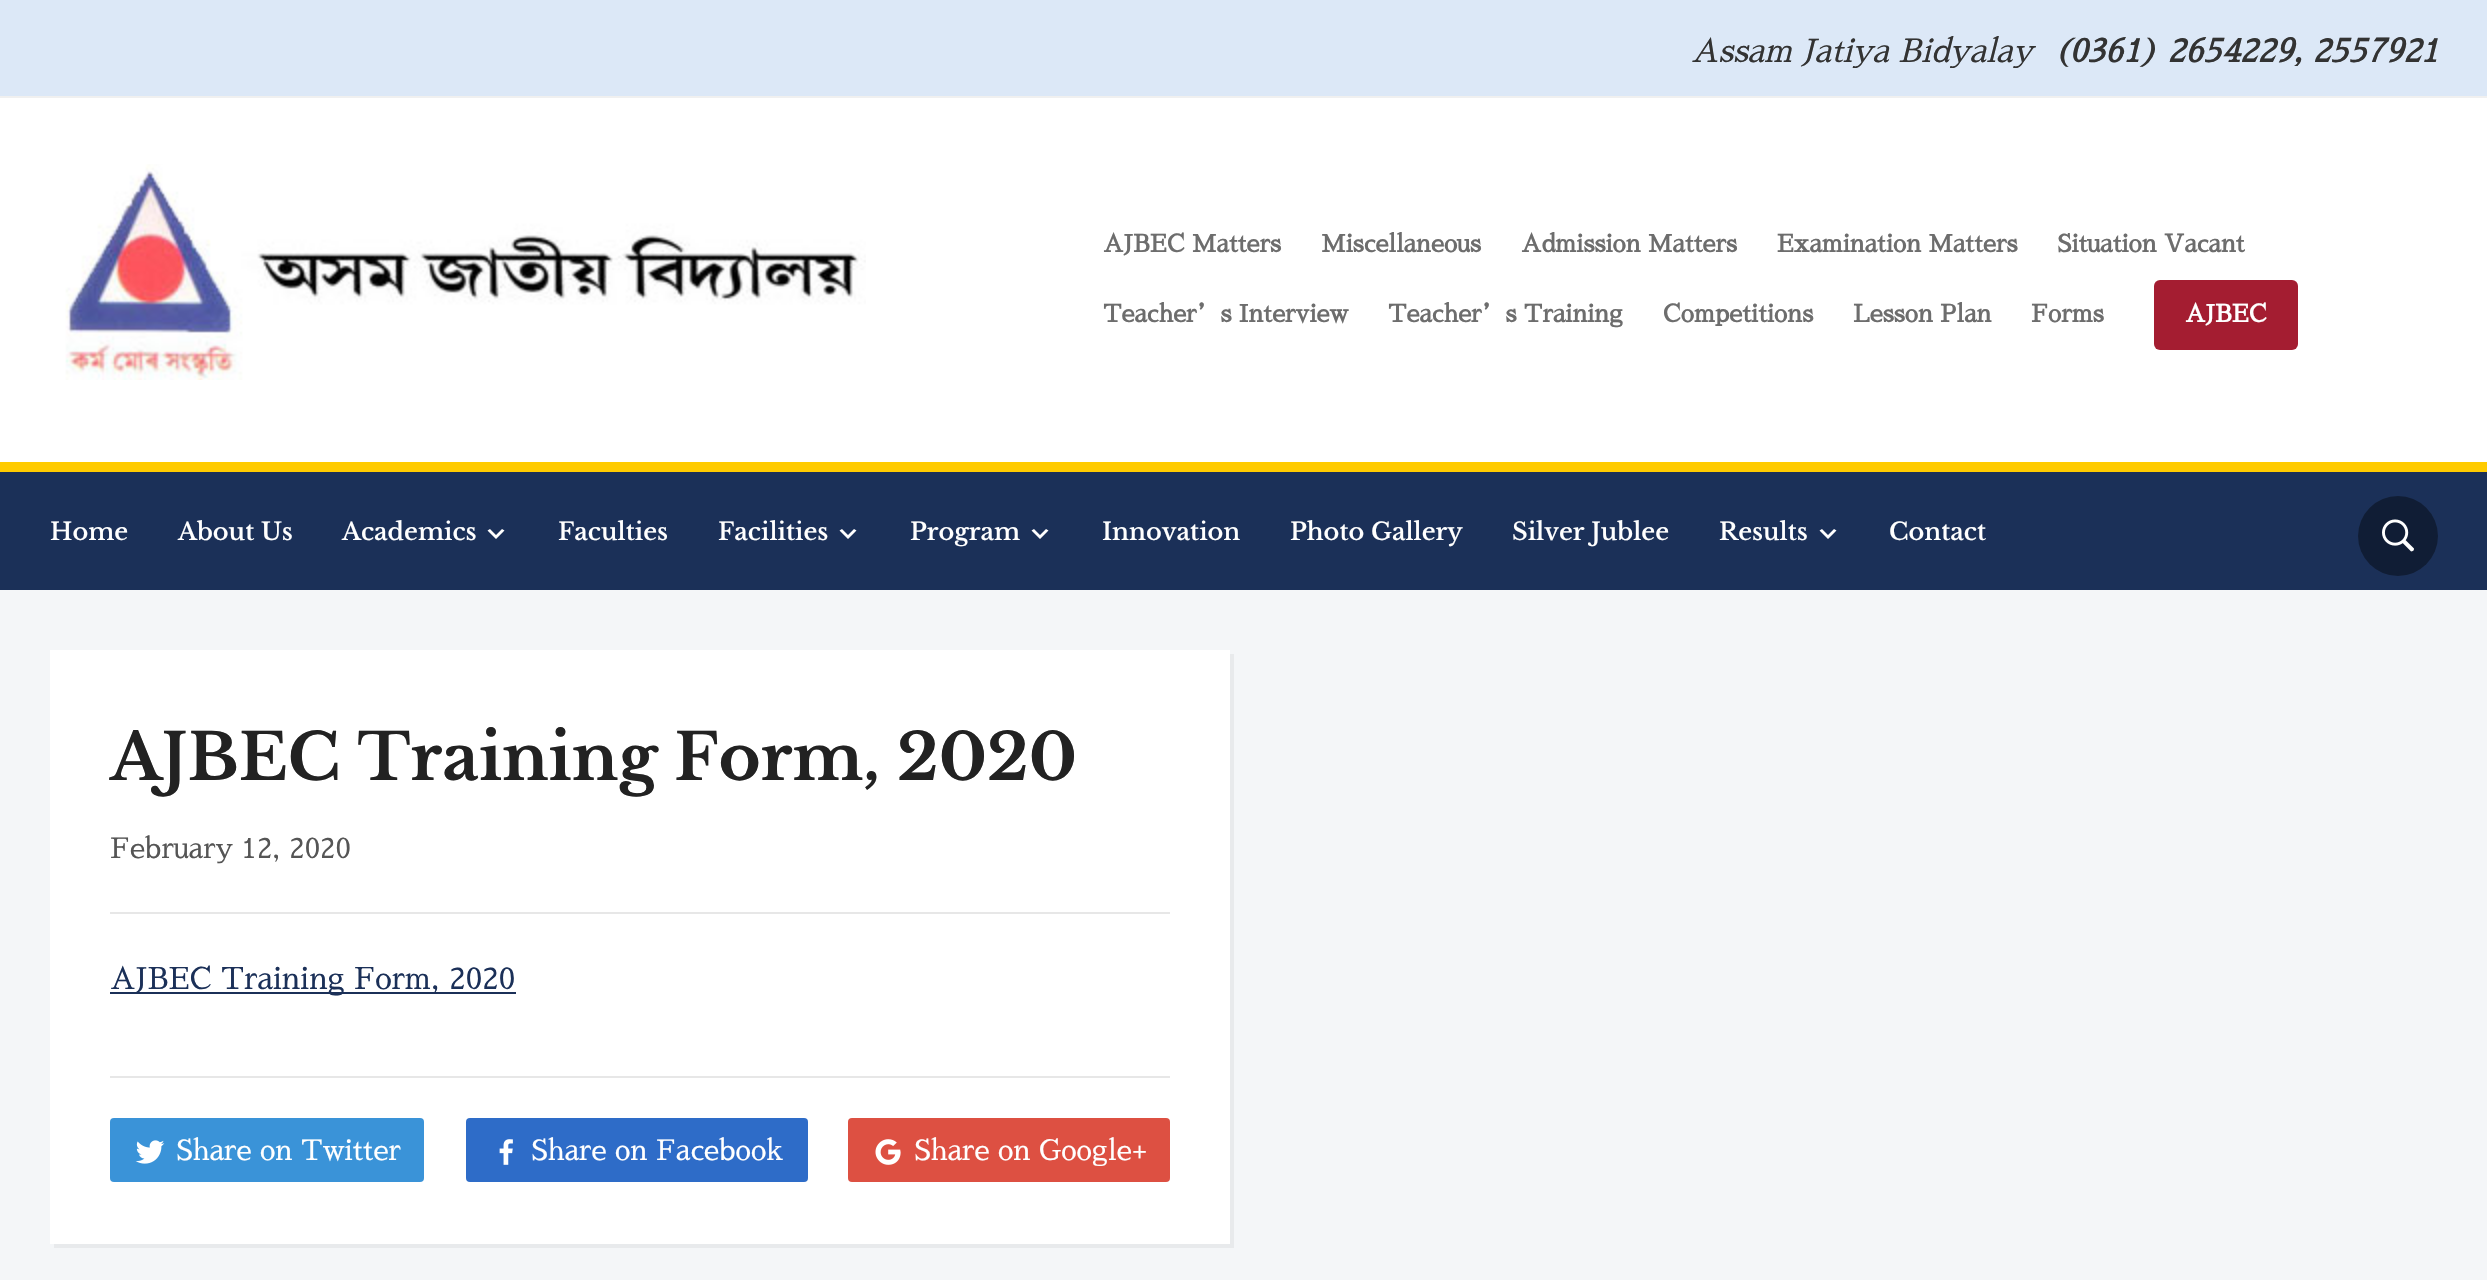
void draw(SkCanvas* canvas) {
	SkPaint fill;
	fill.setAntiAlias(true);
	auto makeFont = [&](const char* family, int weight, float size, bool italic = false) {
		SkFontStyle style(weight, SkFontStyle::kNormal_Width,
			italic ? SkFontStyle::kItalic_Slant : SkFontStyle::kUpright_Slant);
		SkFont result(fontMgr->matchFamilyStyle(family, style), size);
		result.setSubpixel(true);
		return result;
	};
	auto text = [&](const char* s, float x, float y, const SkFont& font) {
		canvas->drawString(s, x, y, font, fill);
	};
	auto box = [&](float l, float t, float r, float b) {
		canvas->drawRect(SkRect::MakeLTRB(l, t, r, b), fill);
	};
	auto roundBox = [&](float l, float t, float r, float b, float radius) {
		canvas->drawRoundRect(SkRect::MakeLTRB(l, t, r, b), radius, radius, fill);
	};
	auto picture = [&](const char* path, float l, float t, float r, float b) {
		auto image = SkImages::DeferredFromEncodedData(SkData::MakeFromFileName(path));
		canvas->drawImageRect(image, SkRect::MakeLTRB(l, t, r, b), SkSamplingOptions());
	};
	canvas->clear(0xFFF4F6F8);
	fill.setColor(0xFFFFFFFF);
	box(0, 98, 2487, 462);
	fill.setColor(0xFFDCE8F7);
	box(0, 0, 2487, 96);
	fill.setColor(0xFFF0F0F0);
	box(0, 96, 2487, 98);
	picture("image0.png", 65, 164, 866, 380);
	fill.setColor(0xFFA41D31);
	roundBox(2154, 280, 2298, 350, 6);
	fill.setColor(0xFF1B3058);
	box(0, 472, 2487, 590);
	fill.setColor(0xFFFFCB00);
	box(0, 462, 2487, 472);
	fill.setColor(0xFFFFFFFF);
	canvas->drawPath(SkPathBuilder().moveTo(490, 529).lineTo(496, 535).lineTo(502, 529).lineTo(504.5f, 530.5f).lineTo(496, 539).lineTo(487.5f, 530.5f).close().detach(), fill);
	canvas->drawPath(SkPathBuilder().moveTo(842, 529).lineTo(848, 535).lineTo(854, 529).lineTo(856.5f, 530.5f).lineTo(848, 539).lineTo(839.5f, 530.5f).close().detach(), fill);
	canvas->drawPath(SkPathBuilder().moveTo(1034, 529).lineTo(1040, 535).lineTo(1046, 529).lineTo(1048.5f, 530.5f).lineTo(1040, 539).lineTo(1031.5f, 530.5f).close().detach(), fill);
	canvas->drawPath(SkPathBuilder().moveTo(1822, 529).lineTo(1828, 535).lineTo(1834, 529).lineTo(1836.5f, 530.5f).lineTo(1828, 539).lineTo(1819.5f, 530.5f).close().detach(), fill);
	fill.setColor(0xFF101D35);
	canvas->drawCircle(2398, 536, 40, fill);
	picture("image1.png", 2382, 519, 2414, 552);
	fill.setColor(0xFFE8EAEC);
	canvas->drawPath(SkPathBuilder().moveTo(54, 1244).lineTo(54, 1248).lineTo(1234, 1248).lineTo(1234, 654).lineTo(1230, 654).lineTo(1230, 1244).close().detach(), fill);
	fill.setColor(0xFFFFFFFF);
	box(50, 650, 1230, 1244);
	fill.setColor(0xFFE7E7E7);
	box(110, 912, 1170, 914);
	fill.setColor(0xFF1B3058);
	box(110, 992, 516, 994);
	fill.setColor(0xFFE7E7E7);
	box(110, 1076, 1170, 1078);
	fill.setColor(0xFF3A93D8);
	roundBox(110, 1118, 424, 1182, 4);
	picture("image2.png", 135, 1140, 165, 1164);
	fill.setColor(0xFF2E6CC8);
	roundBox(466, 1118, 808, 1182, 4);
	picture("image3.png", 499, 1139, 513, 1165);
	fill.setColor(0xFFDD5042);
	roundBox(848, 1118, 1170, 1182, 4);
	picture("image4.png", 875, 1139, 901, 1165);
	auto font1 = makeFont("Sawarabi Mincho", 400, 32, true);
	fill.setColor(0xFF333333);
	text("Assam Jatiya Bidyalay", 1691, 62, font1);
	auto font2 = makeFont("Sawarabi Mincho", 700, 32, true);
	text("(0361) 2654229, 2557921", 2052, 62, font2);
	auto font3 = makeFont("Sawarabi Mincho", 700, 24);
	fill.setColor(0xFF6D6D6D);
	text("AJBEC Matters", 1103, 252, font3);
	text("Miscellaneous", 1321, 252, font3);
	text("Admission Matters", 1521, 252, font3);
	text("Examination Matters", 1777, 252, font3);
	text("Situation Vacant", 2057, 252, font3);
	text("Teacher’s Interview", 1103, 322, font3);
	text("Teacher’s Training", 1388, 322, font3);
	text("Competitions", 1663, 322, font3);
	text("Lesson Plan", 1853, 322, font3);
	text("Forms", 2031, 322, font3);
	fill.setColor(0xFFFFFFFF);
	text("AJBEC", 2185, 322, font3);
	auto font4 = makeFont("Libre Baskerville", 500, 24);
	text("Home", 50, 540, font4);
	text("About Us", 178, 540, font4);
	text("Academics", 342, 540, font4);
	text("Faculties", 558, 540, font4);
	text("Facilities", 718, 540, font4);
	text("Program", 910, 540, font4);
	text("Innovation", 1102, 540, font4);
	text("Photo Gallery", 1290, 540, font4);
	text("Silver Jublee", 1512, 540, font4);
	text("Results", 1719, 540, font4);
	text("Contact", 1889, 540, font4);
	auto font5 = makeFont("Libre Baskerville", 700, 64);
	fill.setColor(0xFF222222);
	text("AJBEC Training Form, 2020", 110, 780, font5);
	auto font6 = makeFont("Sawarabi Mincho", 400, 28);
	fill.setColor(0xFF555555);
	text("February 12, 2020", 110, 858, font6);
	auto font7 = makeFont("Sawarabi Mincho", 400, 30);
	fill.setColor(0xFF1B3058);
	text("AJBEC Training Form, 2020", 110, 989, font7);
	fill.setColor(0xFFFFFFFF);
	text("Share on Twitter", 176, 1160, font6);
	text("Share on Facebook", 531, 1160, font6);
	text("Share on Google+", 914, 1160, font6);
}
